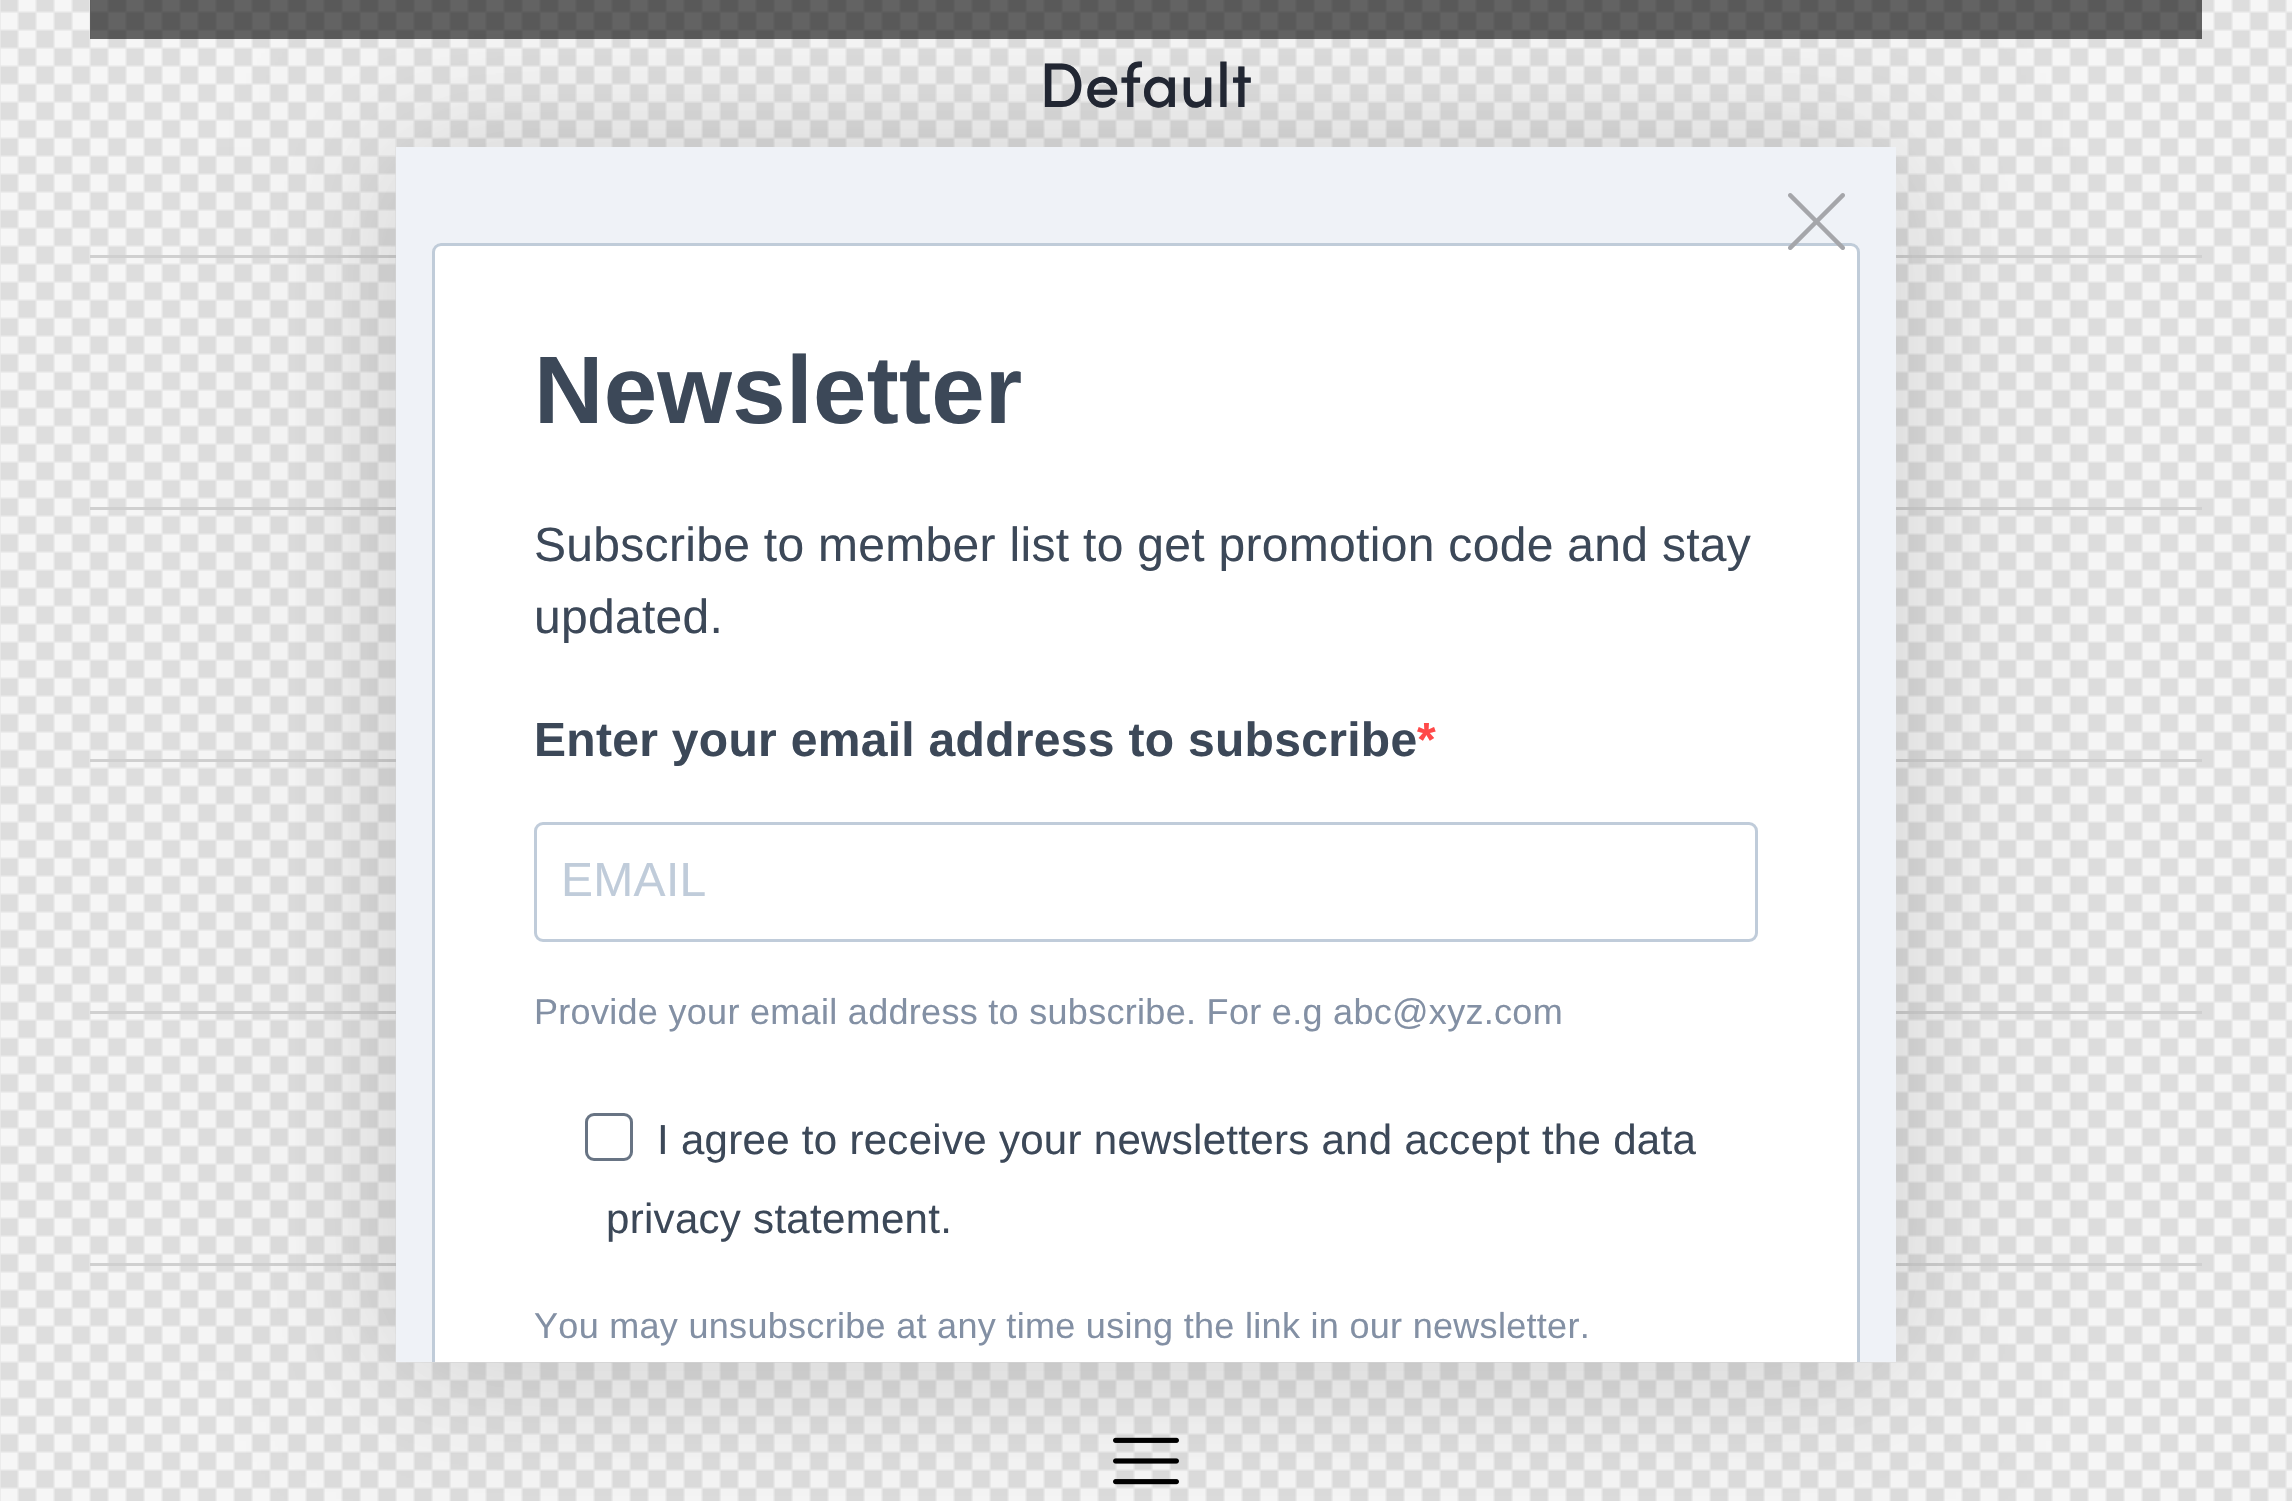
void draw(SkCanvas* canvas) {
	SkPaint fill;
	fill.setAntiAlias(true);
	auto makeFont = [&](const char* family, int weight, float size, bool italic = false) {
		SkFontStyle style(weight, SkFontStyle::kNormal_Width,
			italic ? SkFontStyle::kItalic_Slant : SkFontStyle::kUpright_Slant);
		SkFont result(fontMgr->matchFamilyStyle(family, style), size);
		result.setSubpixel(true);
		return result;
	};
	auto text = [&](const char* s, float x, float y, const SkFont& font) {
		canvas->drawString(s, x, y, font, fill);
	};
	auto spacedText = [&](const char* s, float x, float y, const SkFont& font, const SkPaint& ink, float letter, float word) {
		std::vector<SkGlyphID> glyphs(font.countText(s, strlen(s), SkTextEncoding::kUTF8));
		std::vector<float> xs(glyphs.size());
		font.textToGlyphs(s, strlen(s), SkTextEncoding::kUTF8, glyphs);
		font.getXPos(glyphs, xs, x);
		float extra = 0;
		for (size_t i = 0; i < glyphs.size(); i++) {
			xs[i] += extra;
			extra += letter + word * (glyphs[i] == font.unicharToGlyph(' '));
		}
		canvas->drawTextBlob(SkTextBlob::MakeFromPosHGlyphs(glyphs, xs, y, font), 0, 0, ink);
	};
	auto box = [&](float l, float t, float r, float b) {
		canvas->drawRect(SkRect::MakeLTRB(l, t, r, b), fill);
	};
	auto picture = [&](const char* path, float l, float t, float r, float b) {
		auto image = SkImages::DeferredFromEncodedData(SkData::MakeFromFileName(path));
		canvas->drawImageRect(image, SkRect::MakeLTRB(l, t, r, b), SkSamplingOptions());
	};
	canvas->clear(0xFFFFFFFF);
	picture("image0.png", 0, 0, 2292, 1501);
	fill.setColor(0x99000000);
	box(90, 0, 2202, 39);
	fill.setColor(0xFFD0D0D0);
	box(90, 255, 2202, 258);
	box(90, 507, 2202, 510);
	box(90, 759, 2202, 762);
	box(90, 1011, 2202, 1014);
	box(90, 1263, 2202, 1266);
	picture("image1.png", 1113, 1437, 1179, 1485);
	fill.setColor(0x1A000000);
	fill.setMaskFilter(SkMaskFilter::MakeBlur(kNormal_SkBlurStyle, 69));
	canvas->drawRect(SkRect::MakeLTRB(396, 156, 1896, 1371), fill);
	fill.setMaskFilter(nullptr);
	fill.setColor(0x12000000);
	fill.setMaskFilter(SkMaskFilter::MakeBlur(kNormal_SkBlurStyle, 60));
	canvas->drawRect(SkRect::MakeLTRB(396, 147, 1896, 1362), fill);
	fill.setMaskFilter(nullptr);
	fill.setColor(0xFFEFF2F7);
	box(396, 147, 1896, 1362);
	fill.setColor(0xFFFFFFFF);
	canvas->drawPath(SkPathBuilder().moveTo(441, 243).lineTo(1851, 243).cubicTo(1856, 243, 1860, 247, 1860, 252).lineTo(1860, 1362).lineTo(432, 1362).lineTo(432, 252).cubicTo(432, 247, 436, 243, 441, 243).close().detach(), fill);
	canvas->save();
	canvas->clipRect(SkRect::MakeLTRB(396, 147, 1896, 1362));
	fill.setStyle(SkPaint::kStroke_Style);
	fill.setStrokeWidth(3);
	fill.setColor(0xFFC0CCD9);
	canvas->drawRoundRect(SkRect::MakeLTRB(433.5f, 244.5f, 1858.5f, 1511.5f), 7.5f, 7.5f, fill);
	canvas->restore();
	picture("image2.png", 1788, 193, 1845, 250);
	fill.setColor(0xFFC0CCDA);
	canvas->drawRoundRect(SkRect::MakeLTRB(535.5f, 823.5f, 1756.5f, 940.5f), 7.5f, 7.5f, fill);
	fill.setColor(0xFF687484);
	canvas->drawRoundRect(SkRect::MakeLTRB(586.5f, 1114.5f, 631.5f, 1159.5f), 7.5f, 7.5f, fill);
	auto font1 = makeFont("Sofia", 500, 63);
	fill.setStyle(SkPaint::kFill_Style);
	fill.setColor(0xFF222733);
	text("Default", 1039, 107, font1);
	auto font2 = makeFont("Liberation Sans", 700, 96);
	fill.setColor(0xFF3C4858);
	spacedText("Newsletter", 534, 423, font2, fill, 0.3f, 0);
	auto font3 = makeFont("Liberation Sans", 400, 48);
	spacedText("Subscribe to member list to get promotion code and stay", 534, 561, font3, fill, 0.3f, 0);
	spacedText("updated.", 534, 633, font3, fill, 0.3f, 0);
	auto font4 = makeFont("Liberation Sans", 700, 48);
	spacedText("Enter your email address to subscribe", 534, 756, font4, fill, 0.3f, 0);
	fill.setColor(0xFFFF4949);
	spacedText("*", 1417, 756, font4, fill, 0.3f, 0);
	fill.setColor(0xFFC0CCDA);
	spacedText("EMAIL", 561, 896, font3, fill, 0.3f, 0);
	auto font5 = makeFont("Liberation Sans", 400, 36);
	fill.setColor(0xFF8390A4);
	spacedText("Provide your email address to subscribe. For e.g abc@xyz.com", 534, 1024, font5, fill, 0.3f, 0);
	auto font6 = makeFont("Liberation Sans", 400, 42);
	fill.setColor(0xFF3C4858);
	spacedText("I agree to receive your newsletters and accept the data", 657, 1154, font6, fill, 0.3f, 0);
	spacedText("privacy statement.", 606, 1233, font6, fill, 0.3f, 0);
	fill.setColor(0xFF8390A4);
	spacedText("You may unsubscribe at any time using the link in our newsletter.", 534, 1338, font5, fill, 0.3f, 0);
}
